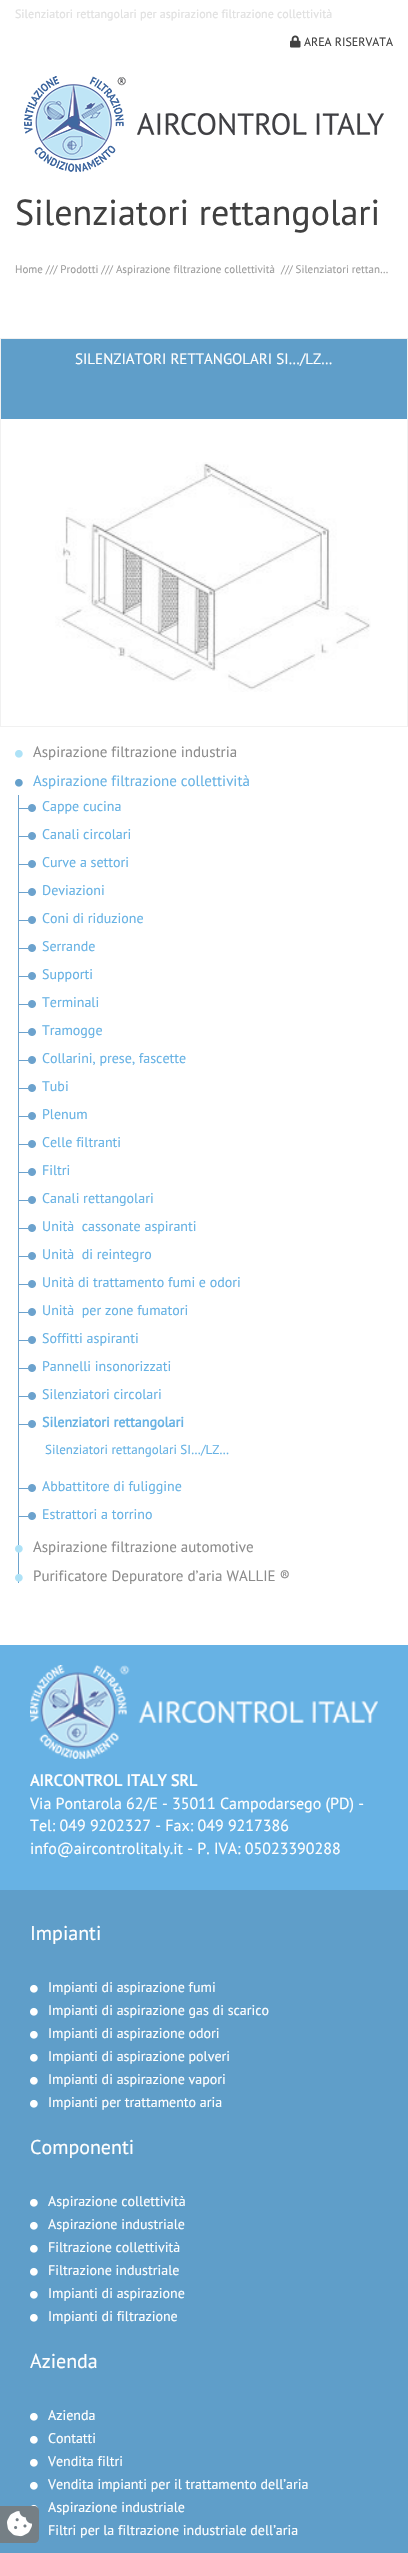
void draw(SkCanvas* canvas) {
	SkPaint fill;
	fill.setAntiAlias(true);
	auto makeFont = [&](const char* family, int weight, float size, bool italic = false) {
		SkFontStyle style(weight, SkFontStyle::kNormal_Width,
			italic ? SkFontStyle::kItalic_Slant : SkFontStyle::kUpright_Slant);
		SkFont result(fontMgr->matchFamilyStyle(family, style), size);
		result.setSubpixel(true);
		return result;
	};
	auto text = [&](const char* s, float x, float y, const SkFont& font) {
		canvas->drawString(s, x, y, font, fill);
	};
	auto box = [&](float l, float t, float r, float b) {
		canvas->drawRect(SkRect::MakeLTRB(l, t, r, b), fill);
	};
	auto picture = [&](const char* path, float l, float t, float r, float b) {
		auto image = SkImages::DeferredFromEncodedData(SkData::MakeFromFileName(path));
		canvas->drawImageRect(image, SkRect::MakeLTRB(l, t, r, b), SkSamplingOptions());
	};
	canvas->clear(0xFFFFFFFF);
	picture("image0.png", 290, 35, 301, 48);
	picture("image1.png", 24, 76, 384, 172);
	fill.setStyle(SkPaint::kStroke_Style);
	fill.setStrokeWidth(1);
	fill.setColor(0xFFF1F1F1);
	canvas->drawRect(SkRect::MakeLTRB(0.5f, 338.5f, 407.5f, 726.5f), fill);
	fill.setStyle(SkPaint::kFill_Style);
	fill.setColor(0xFF5F9EC9);
	box(1, 339, 407, 419);
	picture("image2.png", 55, 462, 371, 692);
	picture("image3.png", 15, 750, 23, 758);
	picture("image4.png", 15, 778, 23, 787);
	fill.setColor(0xFF6DA3CD);
	box(18, 795, 19, 1583);
	picture("image5.png", 19, 804, 36, 812);
	picture("image5.png", 19, 832, 36, 840);
	picture("image5.png", 19, 860, 36, 868);
	picture("image5.png", 19, 888, 36, 896);
	picture("image5.png", 19, 916, 36, 924);
	picture("image5.png", 19, 944, 36, 952);
	picture("image5.png", 19, 972, 36, 980);
	picture("image5.png", 19, 1000, 36, 1008);
	picture("image5.png", 19, 1028, 36, 1036);
	picture("image5.png", 19, 1056, 36, 1064);
	picture("image5.png", 19, 1084, 36, 1092);
	picture("image5.png", 19, 1112, 36, 1120);
	picture("image5.png", 19, 1140, 36, 1148);
	picture("image5.png", 19, 1168, 36, 1176);
	picture("image5.png", 19, 1196, 36, 1204);
	picture("image5.png", 19, 1224, 36, 1232);
	picture("image5.png", 19, 1252, 36, 1260);
	picture("image5.png", 19, 1280, 36, 1288);
	picture("image5.png", 19, 1308, 36, 1316);
	picture("image5.png", 19, 1336, 36, 1344);
	picture("image5.png", 19, 1364, 36, 1372);
	picture("image5.png", 19, 1392, 36, 1400);
	picture("image5.png", 19, 1420, 36, 1428);
	picture("image5.png", 19, 1484, 36, 1492);
	picture("image5.png", 19, 1512, 36, 1520);
	picture("image6.png", 15, 1545, 23, 1553);
	picture("image6.png", 15, 1574, 23, 1582);
	fill.setColor(0xFF67B2E4);
	box(0, 1645, 408, 1890);
	picture("image7.png", 30, 1665, 378, 1759);
	fill.setColor(0xFF5F9EC9);
	box(0, 1890, 408, 2553);
	picture("image8.png", 30, 1984, 38, 1993);
	picture("image8.png", 30, 2007, 38, 2016);
	picture("image8.png", 30, 2030, 38, 2039);
	picture("image8.png", 30, 2053, 38, 2062);
	picture("image8.png", 30, 2076, 38, 2085);
	picture("image8.png", 30, 2099, 38, 2108);
	picture("image8.png", 30, 2198, 38, 2207);
	picture("image8.png", 30, 2221, 38, 2230);
	picture("image8.png", 30, 2244, 38, 2253);
	picture("image8.png", 30, 2267, 38, 2276);
	picture("image8.png", 30, 2290, 38, 2299);
	picture("image8.png", 30, 2313, 38, 2322);
	picture("image8.png", 30, 2412, 38, 2421);
	picture("image8.png", 30, 2435, 38, 2444);
	picture("image8.png", 30, 2458, 38, 2467);
	picture("image8.png", 30, 2481, 38, 2490);
	picture("image9.png", 31, 2504, 38, 2508);
	fill.setColor(0xFF757F85);
	canvas->drawPath(SkPathBuilder().moveTo(0, 2506).lineTo(34, 2506).cubicTo(37, 2506, 39, 2508, 39, 2511).lineTo(39, 2538).cubicTo(39, 2541, 37, 2543, 34, 2543).lineTo(0, 2543).close().detach(), fill);
	picture("image10.png", 7, 2511, 32, 2537);
	auto font1 = makeFont("PT Sans", 400, 12);
	fill.setColor(0xFFE0E0E0);
	text("Silenziatori rettangolari per aspirazione filtrazione collettività", 15, 18, font1);
	fill.setColor(0xFF404040);
	text("AREA RISERVATA", 304, 46, font1);
	auto font2 = makeFont("PT Sans", 400, 36);
	text("Silenziatori rettangolari", 15, 225, font2);
	auto font3 = makeFont("PT Sans", 400, 11);
	fill.setColor(0xFF9D9D9D);
	text("Home /// Prodotti /// Aspirazione filtrazione collettività", 15, 273, font3);
	text("/// Silenziatori rettan…", 281, 273, font3);
	auto font4 = makeFont("PT Sans", 400, 15);
	fill.setColor(0xFFFFFFFF);
	text("SILENZIATORI RETTANGOLARI SI…/LZ…", 75, 364, font4);
	fill.setColor(0xFF8C8C8C);
	text("Aspirazione filtrazione industria", 33, 757, font4);
	fill.setColor(0xFF67B2E4);
	text("Aspirazione filtrazione collettività", 33, 786, font4);
	auto font5 = makeFont("PT Sans", 400, 14);
	text("Cappe cucina", 42, 811, font5);
	text("Canali circolari", 42, 839, font5);
	text("Curve a settori", 42, 867, font5);
	text("Deviazioni", 42, 895, font5);
	text("Coni di riduzione", 42, 923, font5);
	text("Serrande", 42, 951, font5);
	text("Supporti", 42, 979, font5);
	text("Terminali", 42, 1007, font5);
	text("Tramogge", 42, 1035, font5);
	text("Collarini, prese, fascette", 42, 1063, font5);
	text("Tubi", 42, 1091, font5);
	text("Plenum", 42, 1119, font5);
	text("Celle filtranti", 42, 1147, font5);
	text("Filtri", 42, 1175, font5);
	text("Canali rettangolari", 42, 1203, font5);
	text("Unità  cassonate aspiranti", 42, 1231, font5);
	text("Unità  di reintegro", 42, 1259, font5);
	text("Unità di trattamento fumi e odori", 42, 1287, font5);
	text("Unità  per zone fumatori", 42, 1315, font5);
	text("Soffitti aspiranti", 42, 1343, font5);
	text("Pannelli insonorizzati", 42, 1371, font5);
	text("Silenziatori circolari", 42, 1399, font5);
	auto font6 = makeFont("PT Sans", 700, 14);
	text("Silenziatori rettangolari", 42, 1427, font6);
	auto font7 = makeFont("PT Sans", 400, 13);
	text("Silenziatori rettangolari SI…/LZ…", 45, 1454, font7);
	text("Abbattitore di fuliggine", 42, 1491, font5);
	text("Estrattori a torrino", 42, 1519, font5);
	fill.setColor(0xFF8C8C8C);
	text("Aspirazione filtrazione automotive", 33, 1552, font4);
	text("Purificatore Depuratore d’aria WALLIE ®", 33, 1581, font4);
	auto font8 = makeFont("PT Sans", 700, 16);
	fill.setColor(0xFFFFFFFF);
	text("AIRCONTROL ITALY SRL", 30, 1786, font8);
	auto font9 = makeFont("PT Sans", 400, 16);
	text("Via Pontarola 62/E - 35011 Campodarsego (PD) -", 30, 1809, font9);
	text("Tel: 049 9202327 - Fax: 049 9217386", 30, 1831, font9);
	text("info@aircontrolitaly.it - P. IVA: 05023390288", 30, 1854, font9);
	auto font10 = makeFont("PT Sans", 400, 20);
	text("Impianti", 30, 1940, font10);
	text("Impianti di aspirazione fumi", 48, 1992, font5);
	text("Impianti di aspirazione gas di scarico", 48, 2015, font5);
	text("Impianti di aspirazione odori", 48, 2038, font5);
	text("Impianti di aspirazione polveri", 48, 2061, font5);
	text("Impianti di aspirazione vapori", 48, 2084, font5);
	text("Impianti per trattamento aria", 48, 2107, font5);
	text("Componenti", 30, 2154, font10);
	text("Aspirazione collettività", 48, 2206, font5);
	text("Aspirazione industriale", 48, 2229, font5);
	text("Filtrazione collettività", 48, 2252, font5);
	text("Filtrazione industriale", 48, 2275, font5);
	text("Impianti di aspirazione", 48, 2298, font5);
	text("Impianti di filtrazione", 48, 2321, font5);
	text("Azienda", 30, 2368, font10);
	text("Azienda", 48, 2420, font5);
	text("Contatti", 48, 2443, font5);
	text("Vendita filtri", 48, 2466, font5);
	text("Vendita impianti per il trattamento dell’aria", 48, 2489, font5);
	text("Aspirazione industriale", 48, 2512, font5);
	text("Filtri per la filtrazione industriale dell’aria", 48, 2535, font5);
}
